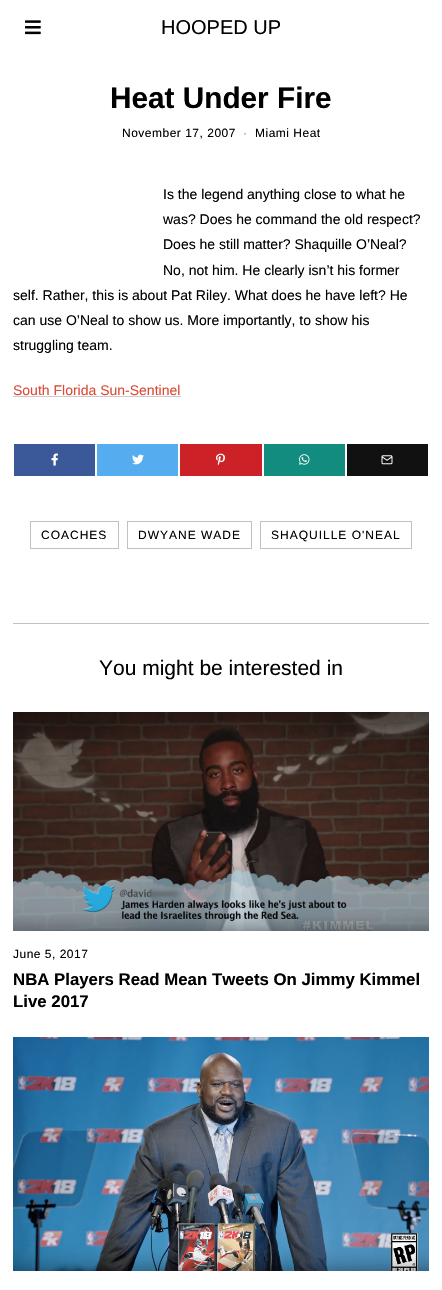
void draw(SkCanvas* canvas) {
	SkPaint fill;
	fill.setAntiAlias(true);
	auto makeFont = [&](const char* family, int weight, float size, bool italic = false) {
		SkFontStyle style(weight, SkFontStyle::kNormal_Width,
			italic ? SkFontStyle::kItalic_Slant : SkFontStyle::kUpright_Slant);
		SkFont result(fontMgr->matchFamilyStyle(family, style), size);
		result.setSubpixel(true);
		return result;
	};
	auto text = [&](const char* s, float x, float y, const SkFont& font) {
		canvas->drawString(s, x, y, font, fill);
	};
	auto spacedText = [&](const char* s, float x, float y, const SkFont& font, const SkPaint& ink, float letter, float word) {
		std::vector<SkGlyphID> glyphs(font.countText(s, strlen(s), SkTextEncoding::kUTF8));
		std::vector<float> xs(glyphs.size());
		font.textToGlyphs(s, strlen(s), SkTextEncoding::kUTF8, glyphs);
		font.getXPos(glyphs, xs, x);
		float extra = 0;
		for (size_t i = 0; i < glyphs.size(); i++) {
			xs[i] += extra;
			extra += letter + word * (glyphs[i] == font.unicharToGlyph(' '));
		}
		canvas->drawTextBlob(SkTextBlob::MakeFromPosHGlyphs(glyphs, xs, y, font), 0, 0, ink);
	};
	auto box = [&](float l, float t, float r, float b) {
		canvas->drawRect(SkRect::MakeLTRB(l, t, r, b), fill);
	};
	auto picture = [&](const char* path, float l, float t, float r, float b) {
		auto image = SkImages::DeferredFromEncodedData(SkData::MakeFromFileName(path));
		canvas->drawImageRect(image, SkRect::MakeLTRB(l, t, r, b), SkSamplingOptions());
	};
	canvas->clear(0xFFFFFFFF);
	picture("image0.png", 25, 20, 41, 35);
	fill.setColor(0xFFCCCCCC);
	box(13, 396, 181, 397);
	fill.setColor(0xFF3B5998);
	box(14, 444, 95, 476);
	picture("image1.png", 51, 453, 58, 466);
	fill.setColor(0xFF55ACEE);
	box(97, 444, 178, 476);
	picture("image2.png", 132, 454, 144, 465);
	fill.setColor(0xFFCC2127);
	box(180, 444, 262, 476);
	picture("image3.png", 216, 453, 225, 466);
	fill.setColor(0xFF128C7E);
	box(264, 444, 345, 476);
	picture("image4.png", 299, 454, 310, 465);
	fill.setColor(0xFF111111);
	box(347, 444, 428, 476);
	picture("image5.png", 381, 455, 393, 465);
	fill.setStyle(SkPaint::kStroke_Style);
	fill.setStrokeWidth(1);
	fill.setColor(0xFFC0C1C0);
	canvas->drawRect(SkRect::MakeLTRB(30.5f, 521.5f, 118.5f, 548.5f), fill);
	canvas->drawRect(SkRect::MakeLTRB(127.5f, 521.5f, 251.5f, 548.5f), fill);
	canvas->drawRect(SkRect::MakeLTRB(260.5f, 521.5f, 411.5f, 548.5f), fill);
	fill.setStyle(SkPaint::kFill_Style);
	box(13, 623, 429, 624);
	picture("image6.png", 13, 712, 429, 931);
	picture("image7.png", 13, 1037, 429, 1271);
	auto font1 = makeFont("Liberation Sans", 400, 20);
	fill.setColor(0xFF000000);
	text("HOOPED UP", 161, 34, font1);
	auto font2 = makeFont("Liberation Sans", 700, 29.75f);
	text("Heat Under Fire", 110, 108, font2);
	auto font3 = makeFont("Liberation Sans", 400, 12);
	spacedText("November 17, 2007", 122, 137, font3, fill, 0.5f, 0);
	fill.setColor(0xFF999999);
	spacedText("·", 243, 137, font3, fill, 0.5f, 0);
	fill.setColor(0xFF000000);
	spacedText("Miami Heat", 255, 137, font3, fill, 0.5f, 0);
	auto font4 = makeFont("Liberation Sans", 400, 14);
	text("Is the legend anything close to what he", 163, 199, font4);
	text("was? Does he command the old respect?", 163, 224, font4);
	text("Does he still matter? Shaquille O’Neal?", 163, 249, font4);
	text("No, not him. He clearly isn’t his former", 163, 275, font4);
	text("self. Rather, this is about Pat Riley. What does he have left? He", 13, 300, font4);
	text("can use O’Neal to show us. More importantly, to show his", 13, 325, font4);
	text("struggling team.", 13, 350, font4);
	fill.setColor(0xFFDB4A36);
	text("South Florida Sun-Sentinel", 13, 395, font4);
	fill.setColor(0xFF000000);
	spacedText("COACHES", 41, 539, font3, fill, 1, 0);
	spacedText("DWYANE WADE", 138, 539, font3, fill, 1, 0);
	spacedText("SHAQUILLE O'NEAL", 271, 539, font3, fill, 1, 0);
	auto font5 = makeFont("Liberation Sans", 400, 21);
	text("You might be interested in", 99, 675, font5);
	spacedText("June 5, 2017", 13, 958, font3, fill, 0.5f, 0);
	auto font6 = makeFont("Liberation Sans", 700, 16.8f);
	text("NBA Players Read Mean Tweets On Jimmy Kimmel", 13, 985, font6);
	text("Live 2017", 13, 1007, font6);
}
